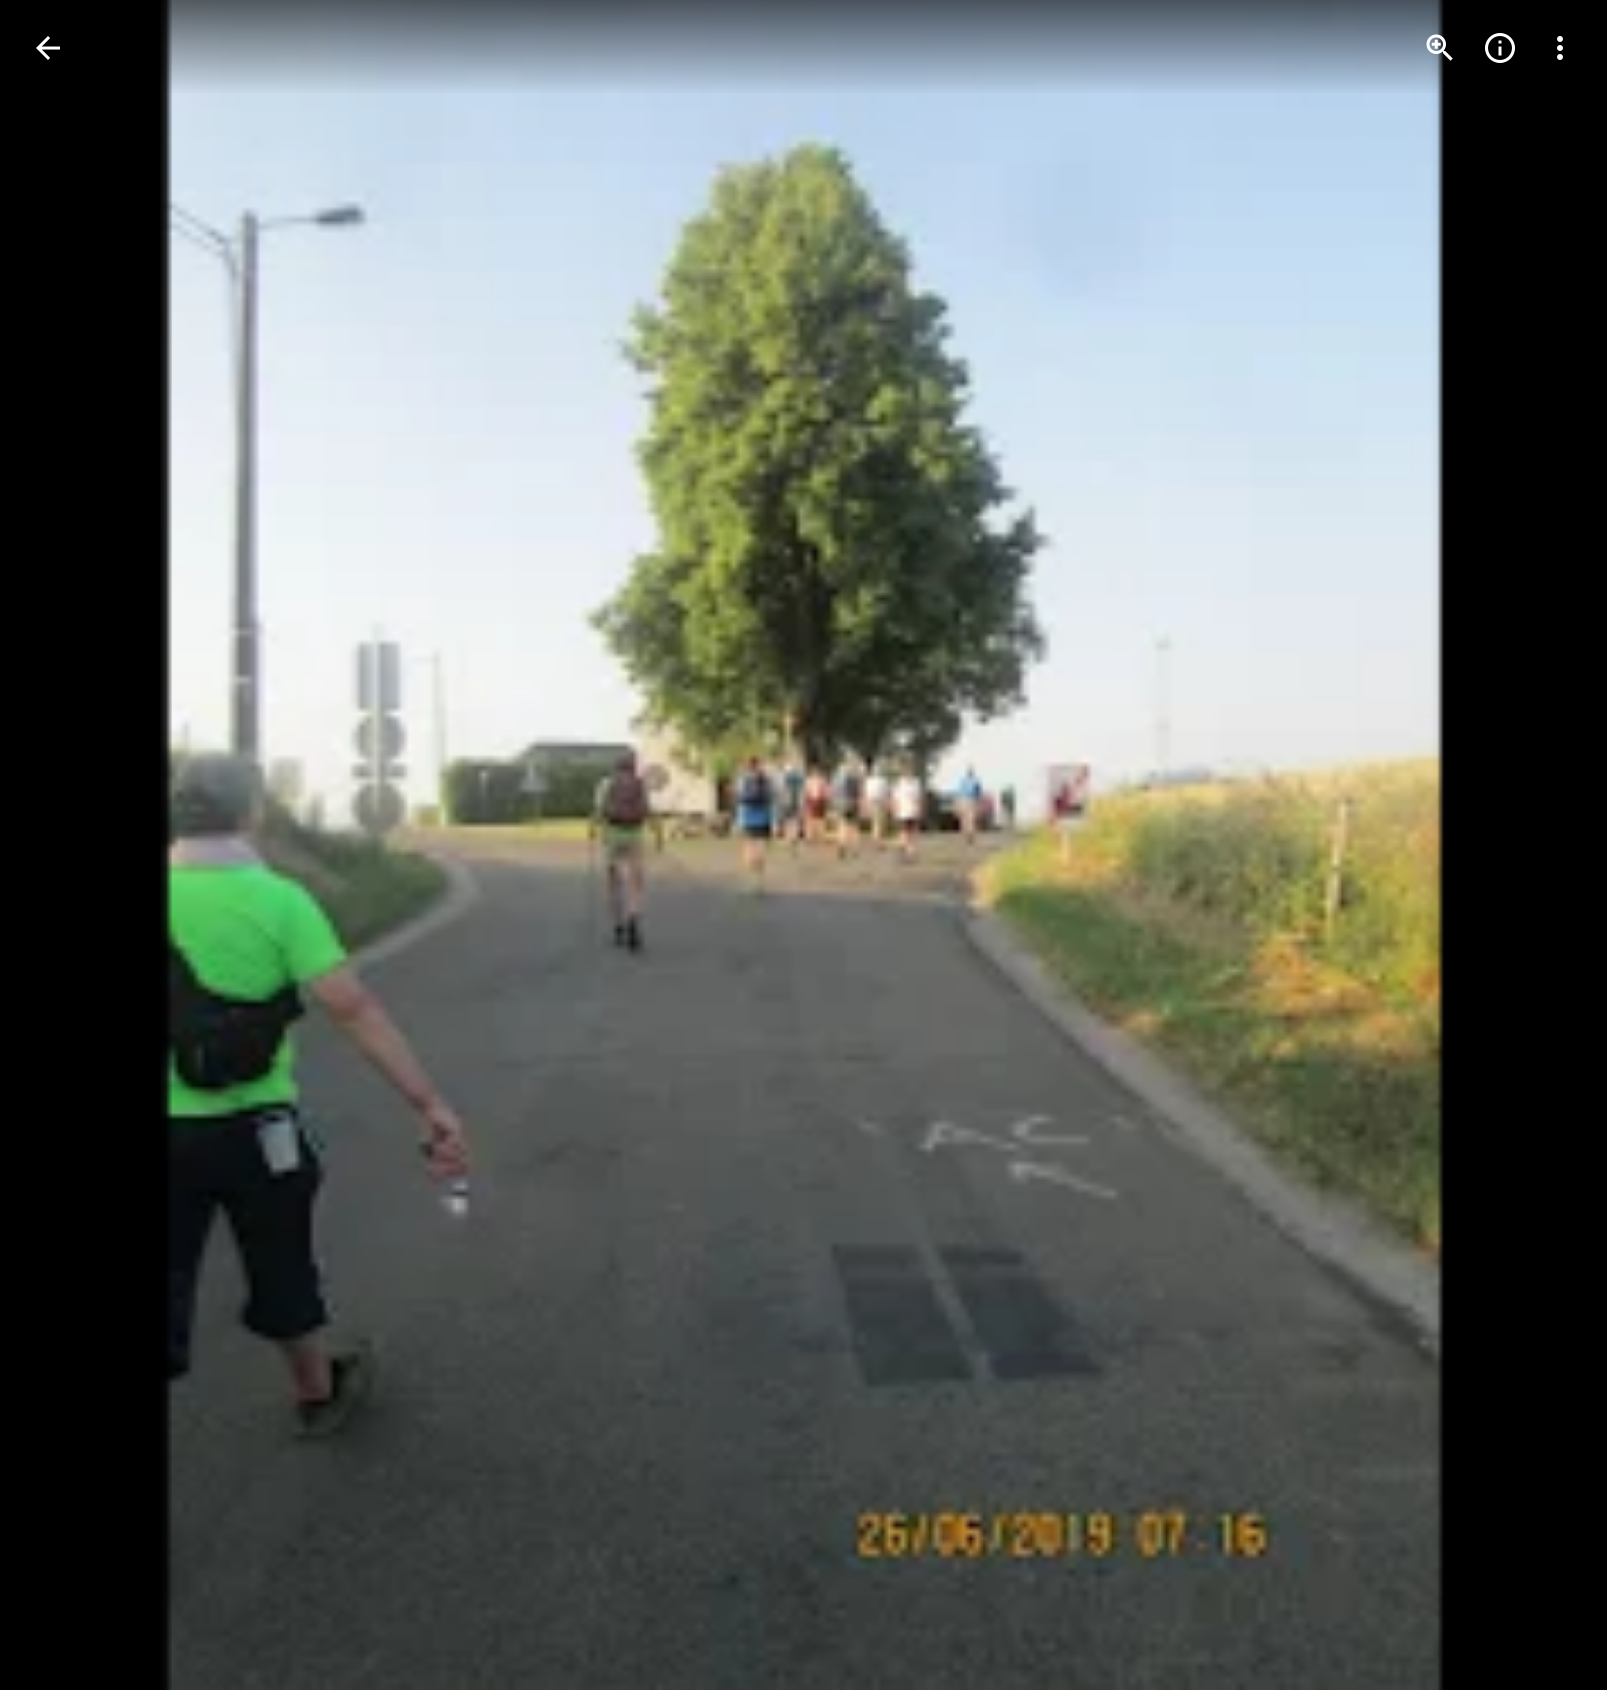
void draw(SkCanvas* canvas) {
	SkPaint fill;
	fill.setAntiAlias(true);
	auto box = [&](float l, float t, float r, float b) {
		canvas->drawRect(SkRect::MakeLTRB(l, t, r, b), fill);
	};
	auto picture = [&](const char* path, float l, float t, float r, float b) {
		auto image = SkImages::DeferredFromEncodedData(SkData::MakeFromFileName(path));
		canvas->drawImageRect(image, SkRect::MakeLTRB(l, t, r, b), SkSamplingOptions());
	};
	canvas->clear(0xFF000000);
	picture("image4.png", 160, 0, 1444, 1690);
	{
		const SkColor colors[] = {0x99000000, 0x00000000};
		const float stops[] = {0, 1};
		const SkPoint ends[] = {{804, 0}, {804, 96}};
		fill.setShader(SkGradientShader::MakeLinear(ends, colors, stops, 2, SkTileMode::kClamp));
		fill.setAlpha(255);
	}
	box(160, 0, 1444, 93);
	picture("image0.png", 36, 36, 60, 60);
	picture("image1.png", 1426, 34, 1453, 61);
	picture("image2.png", 1485, 33, 1515, 63);
	picture("image3.png", 1557, 36, 1563, 60);
}
